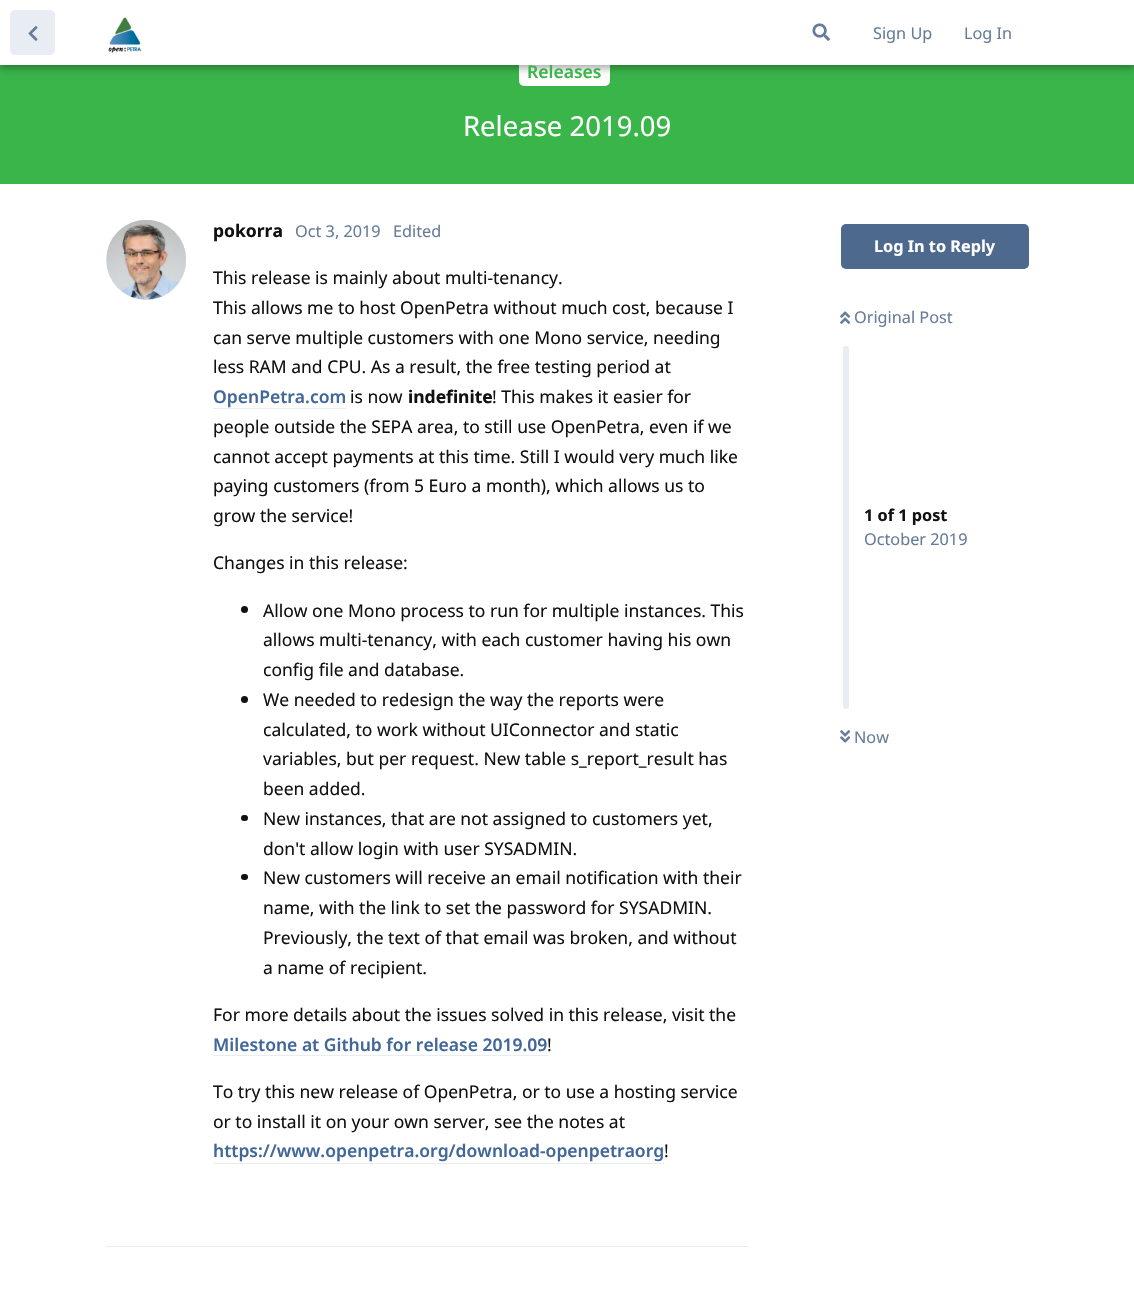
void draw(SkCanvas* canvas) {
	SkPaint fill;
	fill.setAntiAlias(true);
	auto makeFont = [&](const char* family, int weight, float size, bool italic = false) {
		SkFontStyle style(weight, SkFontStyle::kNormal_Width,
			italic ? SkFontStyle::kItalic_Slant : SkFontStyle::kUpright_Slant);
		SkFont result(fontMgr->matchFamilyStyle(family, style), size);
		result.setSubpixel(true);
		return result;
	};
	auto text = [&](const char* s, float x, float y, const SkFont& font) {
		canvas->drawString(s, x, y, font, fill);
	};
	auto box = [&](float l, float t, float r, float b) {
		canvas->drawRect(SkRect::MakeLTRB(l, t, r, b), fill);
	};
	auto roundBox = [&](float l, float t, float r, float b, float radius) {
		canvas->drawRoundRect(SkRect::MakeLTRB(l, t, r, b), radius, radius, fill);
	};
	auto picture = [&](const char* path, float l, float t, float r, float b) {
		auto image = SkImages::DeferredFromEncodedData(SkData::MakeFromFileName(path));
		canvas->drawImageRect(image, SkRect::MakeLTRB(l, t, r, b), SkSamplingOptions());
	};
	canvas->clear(0xFFFFFFFF);
	fill.setColor(0xFF3AB54A);
	box(0, 65, 1134, 184);
	fill.setColor(0xFFFFFFFF);
	roundBox(519, 56, 610, 86, 5);
	fill.setColor(0x59000000);
	fill.setMaskFilter(SkMaskFilter::MakeBlur(kNormal_SkBlurStyle, 4));
	canvas->drawRect(SkRect::MakeLTRB(0, 3, 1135, 68), fill);
	fill.setMaskFilter(nullptr);
	fill.setColor(0xFFE8ECF3);
	box(106, 1246, 748, 1247);
	canvas->drawCircle(146, 260, 40, fill);
	picture("image3.png", 106, 220, 186, 300);
	box(213, 408, 346, 409);
	fill.setColor(0xFF111111);
	canvas->drawCircle(244.5f, 609.5f, 3.5f, fill);
	canvas->drawCircle(244.5f, 699.5f, 3.5f, fill);
	roundBox(241, 815, 248, 821, 3);
	roundBox(241, 874, 248, 880, 3);
	fill.setColor(0xFFE8ECF3);
	box(213, 1055, 548, 1056);
	box(213, 1163, 664, 1164);
	fill.setColor(0xFF4D698E);
	roundBox(841, 224, 1029, 269, 5);
	picture("image4.png", 840, 311, 851, 324);
	fill.setColor(0xFFE8ECF3);
	roundBox(843, 346, 849, 709, 3);
	picture("image5.png", 840, 730, 851, 743);
	auto font1 = makeFont("Noto Sans", 600, 17.5f);
	fill.setColor(0xFF3AB54A);
	text("Releases", 527, 78, font1);
	fill.setColor(0xFFFFFFFF);
	box(0, 0, 1134, 65);
	fill.setColor(0xFFE8ECF3);
	roundBox(10, 10, 55, 55, 5);
	picture("image0.png", 28, 26, 38, 41);
	picture("image2.png", 812, 23, 830, 41);
	auto font2 = makeFont("Noto Sans", 400, 16.25f);
	fill.setColor(0xFF667C99);
	text("Log In", 964, 39, font2);
	text("Sign Up", 873, 39, font2);
	picture("image1.png", 108, 17, 142, 53);
	auto font3 = makeFont("Noto Sans", 400, 27.5f);
	fill.setColor(0xFFFFFFFF);
	text("Release 2019.09", 463, 136, font3);
	auto font4 = makeFont("Noto Sans", 700, 17.5f);
	fill.setColor(0xFF111111);
	text("pokorra", 213, 237, font4);
	fill.setColor(0xFF667C99);
	text("Oct 3, 2019", 295, 237, font2);
	text("Edited", 393, 237, font2);
	auto font5 = makeFont("Noto Sans", 400, 17.5f);
	fill.setColor(0xFF111111);
	text("This release is mainly about multi-tenancy.", 213, 284, font5);
	text("This allows me to host OpenPetra without much cost, because I", 213, 314, font5);
	text("can serve multiple customers with one Mono service, needing", 213, 344, font5);
	text("less RAM and CPU. As a result, the free testing period at", 213, 373, font5);
	fill.setColor(0xFF426799);
	text("OpenPetra.com", 213, 403, font1);
	fill.setColor(0xFF111111);
	text("is now", 350, 403, font5);
	text("indefinite", 408, 403, font4);
	text("! This makes it easier for", 492, 403, font5);
	text("people outside the SEPA area, to still use OpenPetra, even if we", 213, 433, font5);
	text("cannot accept payments at this time. Still I would very much like", 213, 463, font5);
	text("paying customers (from 5 Euro a month), which allows us to", 213, 492, font5);
	text("grow the service!", 213, 522, font5);
	text("Changes in this release:", 213, 569, font5);
	text("Allow one Mono process to run for multiple instances. This", 263, 617, font5);
	text("allows multi-tenancy, with each customer having his own", 263, 646, font5);
	text("config file and database.", 263, 676, font5);
	text("We needed to redesign the way the reports were", 263, 706, font5);
	text("calculated, to work without UIConnector and static", 263, 736, font5);
	text("variables, but per request. New table s_report_result has", 263, 765, font5);
	text("been added.", 263, 795, font5);
	text("New instances, that are not assigned to customers yet,", 263, 825, font5);
	text("don't allow login with user SYSADMIN.", 263, 855, font5);
	text("New customers will receive an email notification with their", 263, 884, font5);
	text("name, with the link to set the password for SYSADMIN.", 263, 914, font5);
	text("Previously, the text of that email was broken, and without", 263, 944, font5);
	text("a name of recipient.", 263, 974, font5);
	text("For more details about the issues solved in this release, visit the", 213, 1021, font5);
	fill.setColor(0xFF426799);
	text("Milestone at Github for release 2019.09", 213, 1051, font1);
	fill.setColor(0xFF111111);
	text("!", 547, 1051, font5);
	text("To try this new release of OpenPetra, or to use a hosting service", 213, 1098, font5);
	text("or to install it on your own server, see the notes at", 213, 1128, font5);
	fill.setColor(0xFF426799);
	text("https://www.openpetra.org/download-openpetraorg", 213, 1157, font1);
	fill.setColor(0xFF111111);
	text("!", 664, 1157, font5);
	auto font6 = makeFont("Noto Sans", 700, 16.25f);
	fill.setColor(0xFFFFFFFF);
	text("Log In to Reply", 874, 252, font6);
	fill.setColor(0xFF667C99);
	text("Original Post", 854, 323, font2);
	fill.setColor(0xFF111111);
	text("1 of 1 post", 864, 521, font6);
	fill.setColor(0xFF667C99);
	text("October 2019", 864, 545, font2);
	text("Now", 854, 743, font2);
}
